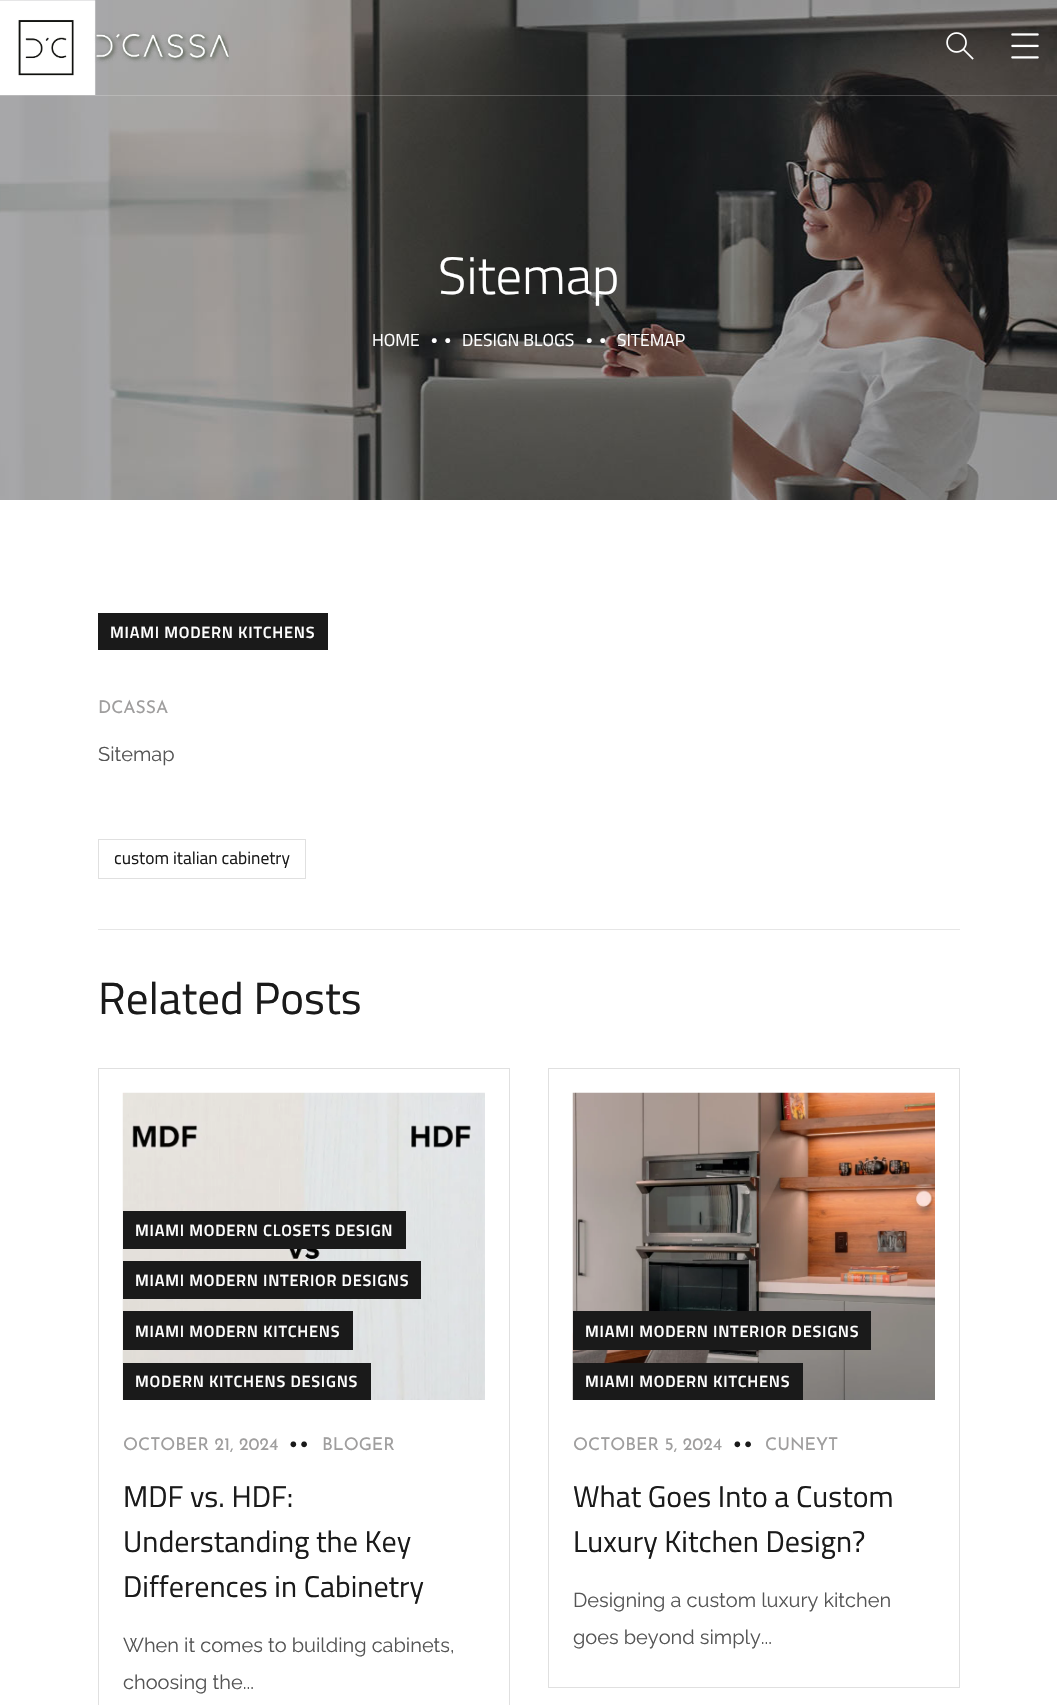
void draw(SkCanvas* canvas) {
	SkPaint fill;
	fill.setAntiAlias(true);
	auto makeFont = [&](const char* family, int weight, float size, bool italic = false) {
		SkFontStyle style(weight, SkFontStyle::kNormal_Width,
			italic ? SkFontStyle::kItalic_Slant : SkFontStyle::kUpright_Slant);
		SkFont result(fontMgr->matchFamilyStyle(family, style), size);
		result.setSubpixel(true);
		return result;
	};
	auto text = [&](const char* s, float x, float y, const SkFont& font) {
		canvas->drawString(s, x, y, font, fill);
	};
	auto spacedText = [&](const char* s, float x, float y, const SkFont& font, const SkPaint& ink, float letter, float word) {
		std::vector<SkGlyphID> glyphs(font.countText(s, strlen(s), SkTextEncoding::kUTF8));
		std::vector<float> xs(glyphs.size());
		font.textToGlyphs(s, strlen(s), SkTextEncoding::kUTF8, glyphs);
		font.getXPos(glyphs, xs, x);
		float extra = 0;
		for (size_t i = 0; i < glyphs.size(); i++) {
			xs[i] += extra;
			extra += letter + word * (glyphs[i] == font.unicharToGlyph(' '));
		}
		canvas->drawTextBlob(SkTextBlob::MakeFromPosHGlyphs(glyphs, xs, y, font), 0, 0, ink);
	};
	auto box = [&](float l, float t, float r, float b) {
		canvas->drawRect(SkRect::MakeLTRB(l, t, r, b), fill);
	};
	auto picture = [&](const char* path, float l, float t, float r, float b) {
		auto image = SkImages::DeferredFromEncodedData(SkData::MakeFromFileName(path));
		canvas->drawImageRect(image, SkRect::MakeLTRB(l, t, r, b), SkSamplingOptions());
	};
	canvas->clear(0xFFFFFFFF);
	picture("image3.png", 0, 0, 1057, 500);
	fill.setColor(0x33FFFFFF);
	box(0, 95, 1057, 96);
	picture("image0.png", 0, 0, 229, 95);
	picture("image1.png", 946, 32, 974, 60);
	picture("image2.png", 1011, 33, 1039, 59);
	fill.setColor(0xFF1A1A1A);
	box(98, 613, 328, 650);
	fill.setColor(0xFFE6E6E6);
	box(98, 929, 960, 930);
	fill.setStyle(SkPaint::kStroke_Style);
	fill.setStrokeWidth(1);
	fill.setColor(0xFFE0E0E0);
	canvas->drawRect(SkRect::MakeLTRB(98.5f, 839.5f, 305.5f, 878.5f), fill);
	canvas->drawRect(SkRect::MakeLTRB(98.5f, 1068.5f, 509.5f, 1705.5f), fill);
	picture("image4.png", 122, 1092, 485, 1400);
	fill.setStyle(SkPaint::kFill_Style);
	fill.setColor(0xFF1A1A1A);
	box(123, 1211, 406, 1249);
	box(123, 1261, 421, 1299);
	box(123, 1311, 353, 1350);
	box(123, 1363, 371, 1400);
	fill.setStyle(SkPaint::kStroke_Style);
	fill.setColor(0xFFE0E0E0);
	canvas->drawRect(SkRect::MakeLTRB(548.5f, 1068.5f, 959.5f, 1687.5f), fill);
	picture("image5.png", 572, 1092, 935, 1400);
	fill.setStyle(SkPaint::kFill_Style);
	fill.setColor(0xFF1A1A1A);
	box(573, 1311, 871, 1350);
	box(573, 1363, 803, 1400);
	auto font1 = makeFont("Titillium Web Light", 300, 52.5f);
	fill.setColor(0xFFFFFFFF);
	text("Sitemap", 438, 294, font1);
	auto font2 = makeFont("Titillium Web", 400, 17.5f);
	text("HOME", 372, 346, font2);
	auto font3 = makeFont("Josefin Sans", 500, 17.5f);
	spacedText("••", 430, 346, font3, fill, 5, 0);
	text("DESIGN BLOGS", 462, 346, font2);
	spacedText("••", 585, 346, font3, fill, 5, 0);
	text("SITEMAP", 617, 346, font2);
	auto font4 = makeFont("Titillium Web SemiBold", 600, 16.25f);
	spacedText("MIAMI MODERN KITCHENS", 110, 638, font4, fill, 0.75f, 0);
	auto font5 = makeFont("Josefin Sans", 400, 17.5f);
	fill.setColor(0xFF9F9E9E);
	text("DCASSA", 98, 713, font5);
	auto font6 = makeFont("Raleway", 400, 20);
	fill.setColor(0xFF555555);
	text("Sitemap", 98, 761, font6);
	fill.setColor(0xFF1A1A1A);
	text("custom italian cabinetry", 114, 864, font2);
	auto font7 = makeFont("Titillium Web", 400, 45);
	text("Related Posts", 98, 1014, font7);
	fill.setColor(0xFFFFFFFF);
	spacedText("MIAMI MODERN CLOSETS DESIGN", 135, 1236, font4, fill, 0.75f, 0);
	spacedText("MIAMI MODERN INTERIOR DESIGNS", 135, 1286, font4, fill, 0.75f, 0);
	spacedText("MIAMI MODERN KITCHENS", 135, 1337, font4, fill, 0.75f, 0);
	spacedText("MODERN KITCHENS DESIGNS", 135, 1387, font4, fill, 0.75f, 0);
	fill.setColor(0xFF9F9E9E);
	text("OCTOBER 21, 2024", 123, 1450, font5);
	auto font8 = makeFont("Josefin Sans", 400, 22);
	fill.setColor(0xFF1A1A1A);
	text("••", 288, 1451, font8);
	fill.setColor(0xFF9F9E9E);
	text("BLOGER", 322, 1450, font5);
	auto font9 = makeFont("Titillium Web", 400, 30);
	fill.setColor(0xFF1A1A1A);
	text("MDF vs. HDF:", 123, 1507, font9);
	text("Understanding the Key", 123, 1552, font9);
	text("Differences in Cabinetry", 123, 1597, font9);
	fill.setColor(0xFF555555);
	text("When it comes to building cabinets,", 123, 1652, font6);
	text("choosing the...", 123, 1689, font6);
	fill.setColor(0xFFFFFFFF);
	spacedText("MIAMI MODERN INTERIOR DESIGNS", 585, 1337, font4, fill, 0.75f, 0);
	spacedText("MIAMI MODERN KITCHENS", 585, 1387, font4, fill, 0.75f, 0);
	fill.setColor(0xFF9F9E9E);
	text("OCTOBER 5, 2024", 573, 1450, font5);
	fill.setColor(0xFF1A1A1A);
	text("••", 732, 1451, font8);
	fill.setColor(0xFF9F9E9E);
	text("CUNEYT", 765, 1450, font5);
	fill.setColor(0xFF1A1A1A);
	text("What Goes Into a Custom", 573, 1507, font9);
	text("Luxury Kitchen Design?", 573, 1552, font9);
	fill.setColor(0xFF555555);
	text("Designing a custom luxury kitchen", 573, 1607, font6);
	text("goes beyond simply...", 573, 1644, font6);
}
